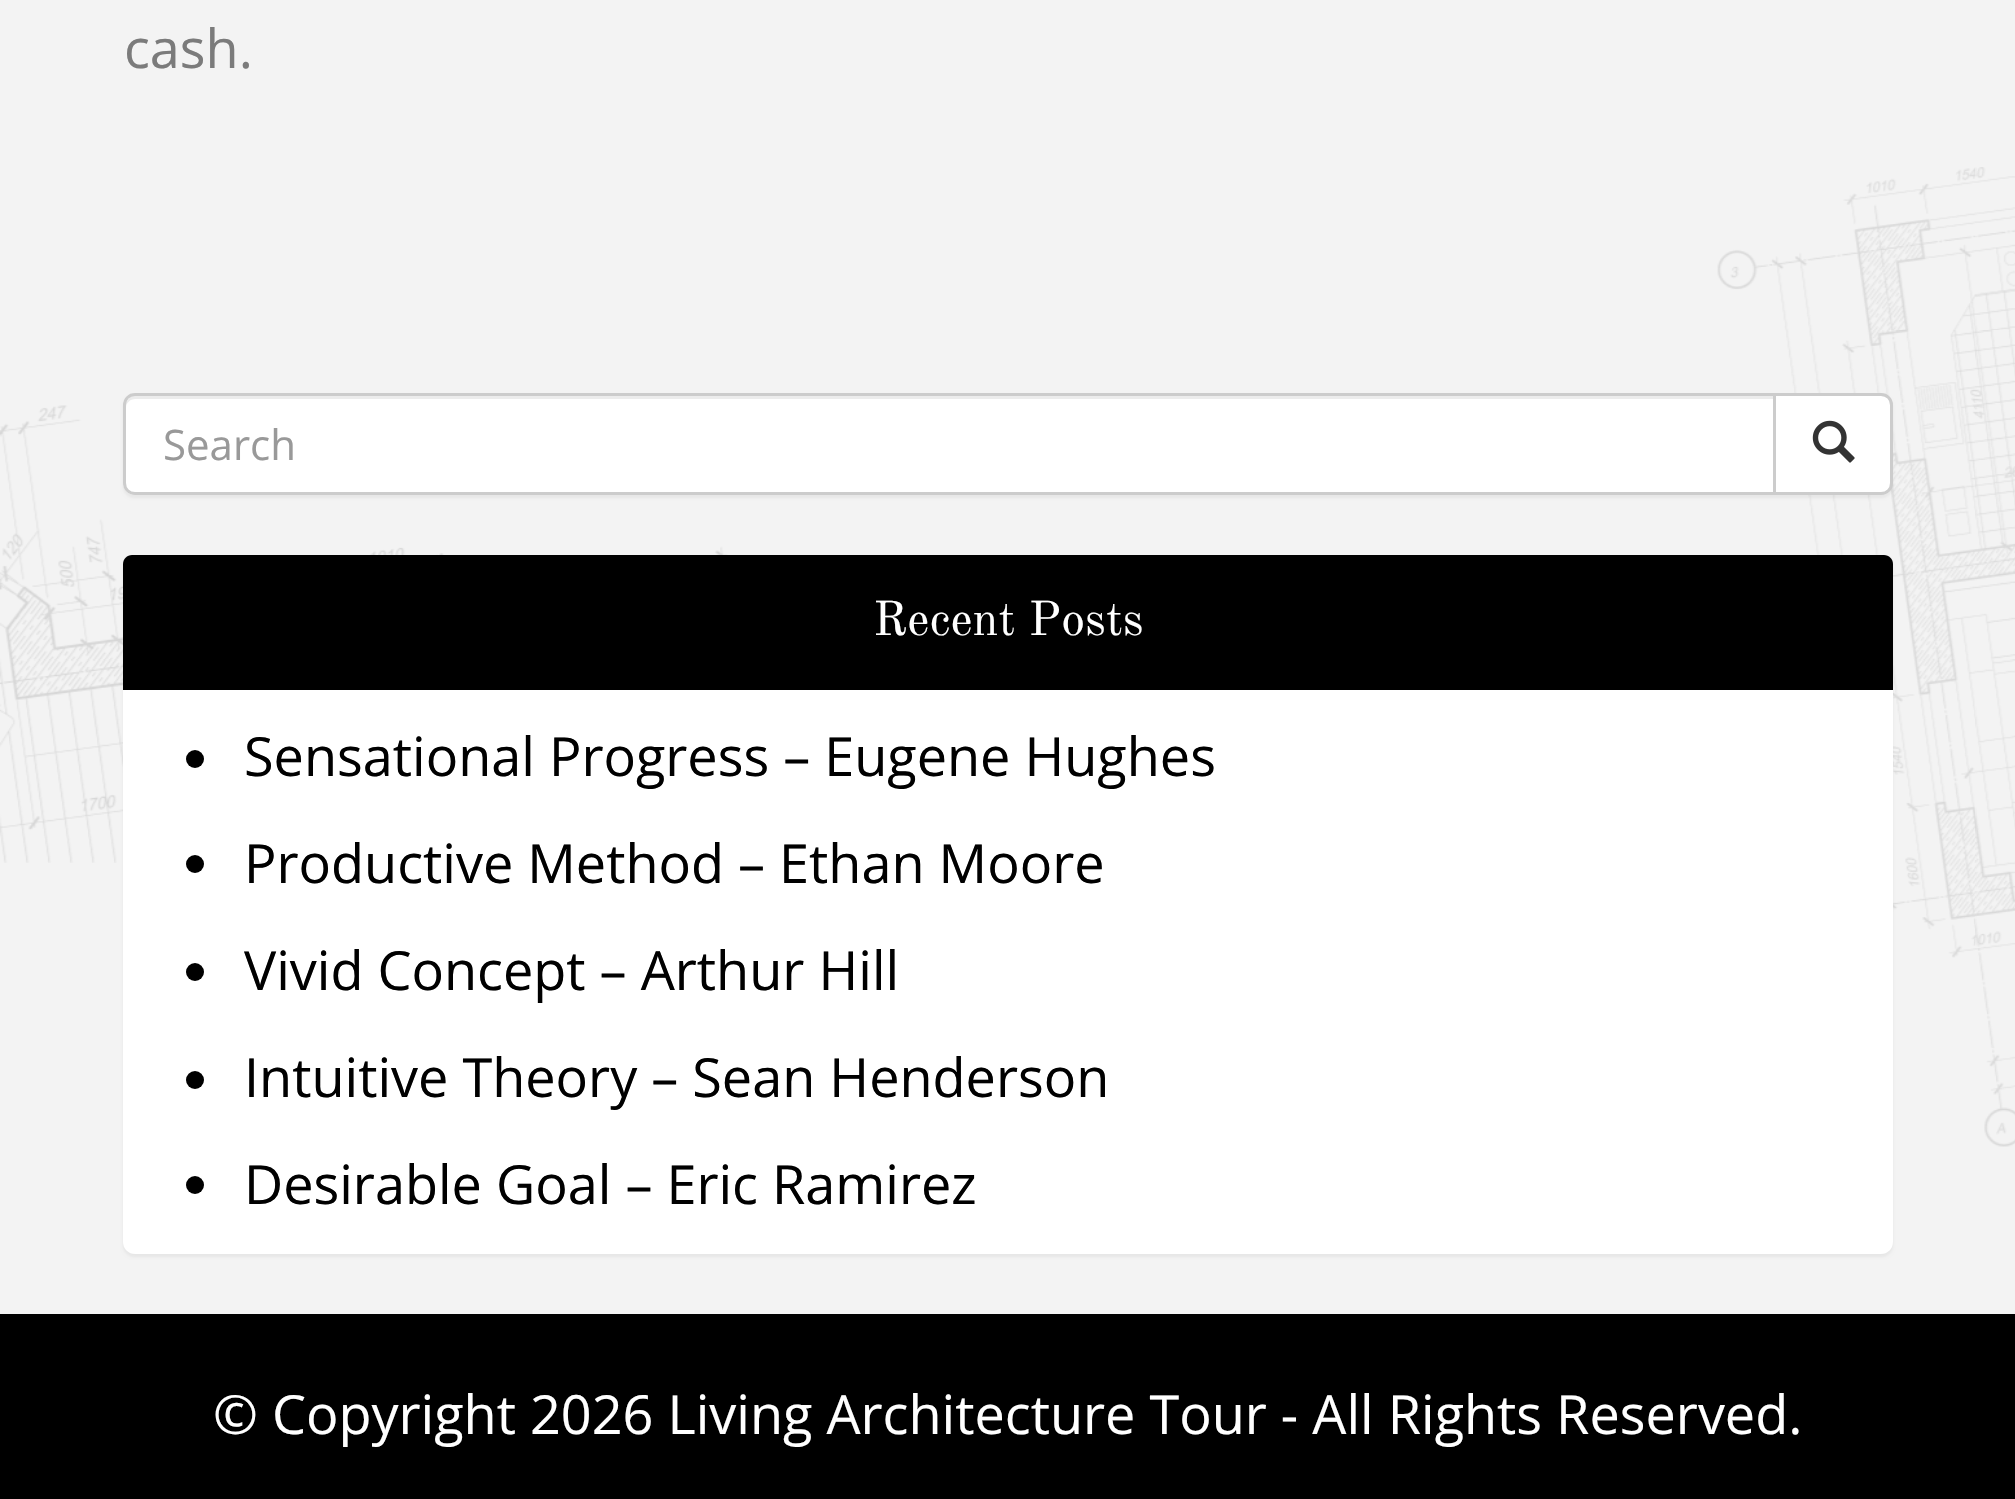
void draw(SkCanvas* canvas) {
	SkPaint fill;
	fill.setAntiAlias(true);
	auto makeFont = [&](const char* family, int weight, float size, bool italic = false) {
		SkFontStyle style(weight, SkFontStyle::kNormal_Width,
			italic ? SkFontStyle::kItalic_Slant : SkFontStyle::kUpright_Slant);
		SkFont result(fontMgr->matchFamilyStyle(family, style), size);
		result.setSubpixel(true);
		return result;
	};
	auto text = [&](const char* s, float x, float y, const SkFont& font) {
		canvas->drawString(s, x, y, font, fill);
	};
	auto box = [&](float l, float t, float r, float b) {
		canvas->drawRect(SkRect::MakeLTRB(l, t, r, b), fill);
	};
	auto roundBox = [&](float l, float t, float r, float b, float radius) {
		canvas->drawRoundRect(SkRect::MakeLTRB(l, t, r, b), radius, radius, fill);
	};
	auto picture = [&](const char* path, float l, float t, float r, float b) {
		auto image = SkImages::DeferredFromEncodedData(SkData::MakeFromFileName(path));
		canvas->drawImageRect(image, SkRect::MakeLTRB(l, t, r, b), SkSamplingOptions());
	};
	canvas->clear(0xFFF3F3F3);
	picture("image0.png", 0, 167, 2015, 1147);
	fill.setColor(0x0D000000);
	fill.setMaskFilter(SkMaskFilter::MakeBlur(kNormal_SkBlurStyle, 1.5f));
	canvas->drawRoundRect(SkRect::MakeLTRB(123, 396, 1893, 498), 12, 12, fill);
	fill.setMaskFilter(nullptr);
	fill.setColor(0xFFFFFFFF);
	canvas->drawPath(SkPathBuilder().moveTo(135, 393).lineTo(1776, 393).lineTo(1776, 495).lineTo(135, 495).cubicTo(128.5f, 495, 123, 489.5f, 123, 483).lineTo(123, 405).cubicTo(123, 398.5f, 128.5f, 393, 135, 393).close().detach(), fill);
	fill.setColor(0xFFECECEC);
	canvas->drawPath(SkPathBuilder().moveTo(135, 399).lineTo(1773, 399).lineTo(1773, 396).lineTo(135, 396).cubicTo(128, 396, 126, 402, 126, 408).cubicTo(126, 403, 130, 399, 135, 399).close().detach(), fill);
	fill.setStyle(SkPaint::kStroke_Style);
	fill.setStrokeWidth(3);
	fill.setColor(0xFFCCCCCC);
	canvas->drawPath(SkPathBuilder().moveTo(135, 394.5f).lineTo(1774.5f, 394.5f).lineTo(1774.5f, 493.5f).lineTo(135, 493.5f).cubicTo(129, 493.5f, 124.5f, 489, 124.5f, 483).lineTo(124.5f, 405).cubicTo(124.5f, 399, 129, 394.5f, 135, 394.5f).close().detach(), fill);
	fill.setStyle(SkPaint::kFill_Style);
	fill.setColor(0xFFFFFFFF);
	canvas->drawPath(SkPathBuilder().moveTo(1774.5f, 394.5f).lineTo(1881, 394.5f).cubicTo(1887, 394.5f, 1891.5f, 399, 1891.5f, 405).lineTo(1891.5f, 483).cubicTo(1891.5f, 489, 1887, 493.5f, 1881, 493.5f).lineTo(1774.5f, 493.5f).close().detach(), fill);
	fill.setStyle(SkPaint::kStroke_Style);
	fill.setColor(0xFFCCCCCC);
	canvas->drawPath(SkPathBuilder().moveTo(1774.5f, 394.5f).lineTo(1881, 394.5f).cubicTo(1887, 394.5f, 1891.5f, 399, 1891.5f, 405).lineTo(1891.5f, 483).cubicTo(1891.5f, 489, 1887, 493.5f, 1881, 493.5f).lineTo(1774.5f, 493.5f).close().detach(), fill);
	picture("image1.png", 1812, 420, 1855, 463);
	fill.setStyle(SkPaint::kFill_Style);
	fill.setColor(0x0D000000);
	fill.setMaskFilter(SkMaskFilter::MakeBlur(kNormal_SkBlurStyle, 1.5f));
	canvas->drawRoundRect(SkRect::MakeLTRB(123, 558, 1893, 1257), 12, 12, fill);
	fill.setMaskFilter(nullptr);
	fill.setColor(0xFFFFFFFF);
	roundBox(123, 555, 1893, 1254, 12);
	fill.setColor(0xFF000000);
	canvas->drawPath(SkPathBuilder().moveTo(132, 555).lineTo(1884, 555).cubicTo(1889, 555, 1893, 559, 1893, 564).lineTo(1893, 690).lineTo(123, 690).lineTo(123, 564).cubicTo(123, 559, 127, 555, 132, 555).close().detach(), fill);
	canvas->drawCircle(195, 759, 9, fill);
	canvas->drawCircle(195, 864, 9, fill);
	canvas->drawCircle(195, 972, 9, fill);
	canvas->drawCircle(195, 1080, 9, fill);
	canvas->drawCircle(195, 1185, 9, fill);
	box(0, 1314, 2015, 1499);
	auto font1 = makeFont("Open Sans", 400, 54);
	fill.setColor(0xFF7B7B7B);
	text("cash.", 124, 68, font1);
	auto font2 = makeFont("Open Sans", 400, 42);
	fill.setColor(0xFF999999);
	text("Search", 163, 460, font2);
	auto font3 = makeFont("Old Standard TT", 400, 48);
	fill.setColor(0xFFFFFFFF);
	text("Recent Posts", 873, 635, font3);
	fill.setColor(0xFF000000);
	text("Sensational Progress – Eugene Hughes", 244, 776, font1);
	text("Productive Method – Ethan Moore", 244, 883, font1);
	text("Vivid Concept – Arthur Hill", 244, 990, font1);
	text("Intuitive Theory – Sean Henderson", 244, 1097, font1);
	text("Desirable Goal – Eric Ramirez", 244, 1204, font1);
	fill.setColor(0xFFFFFFFF);
	text("© Copyright 2026 Living Architecture Tour - All Rights Reserved.", 213, 1434, font1);
}
